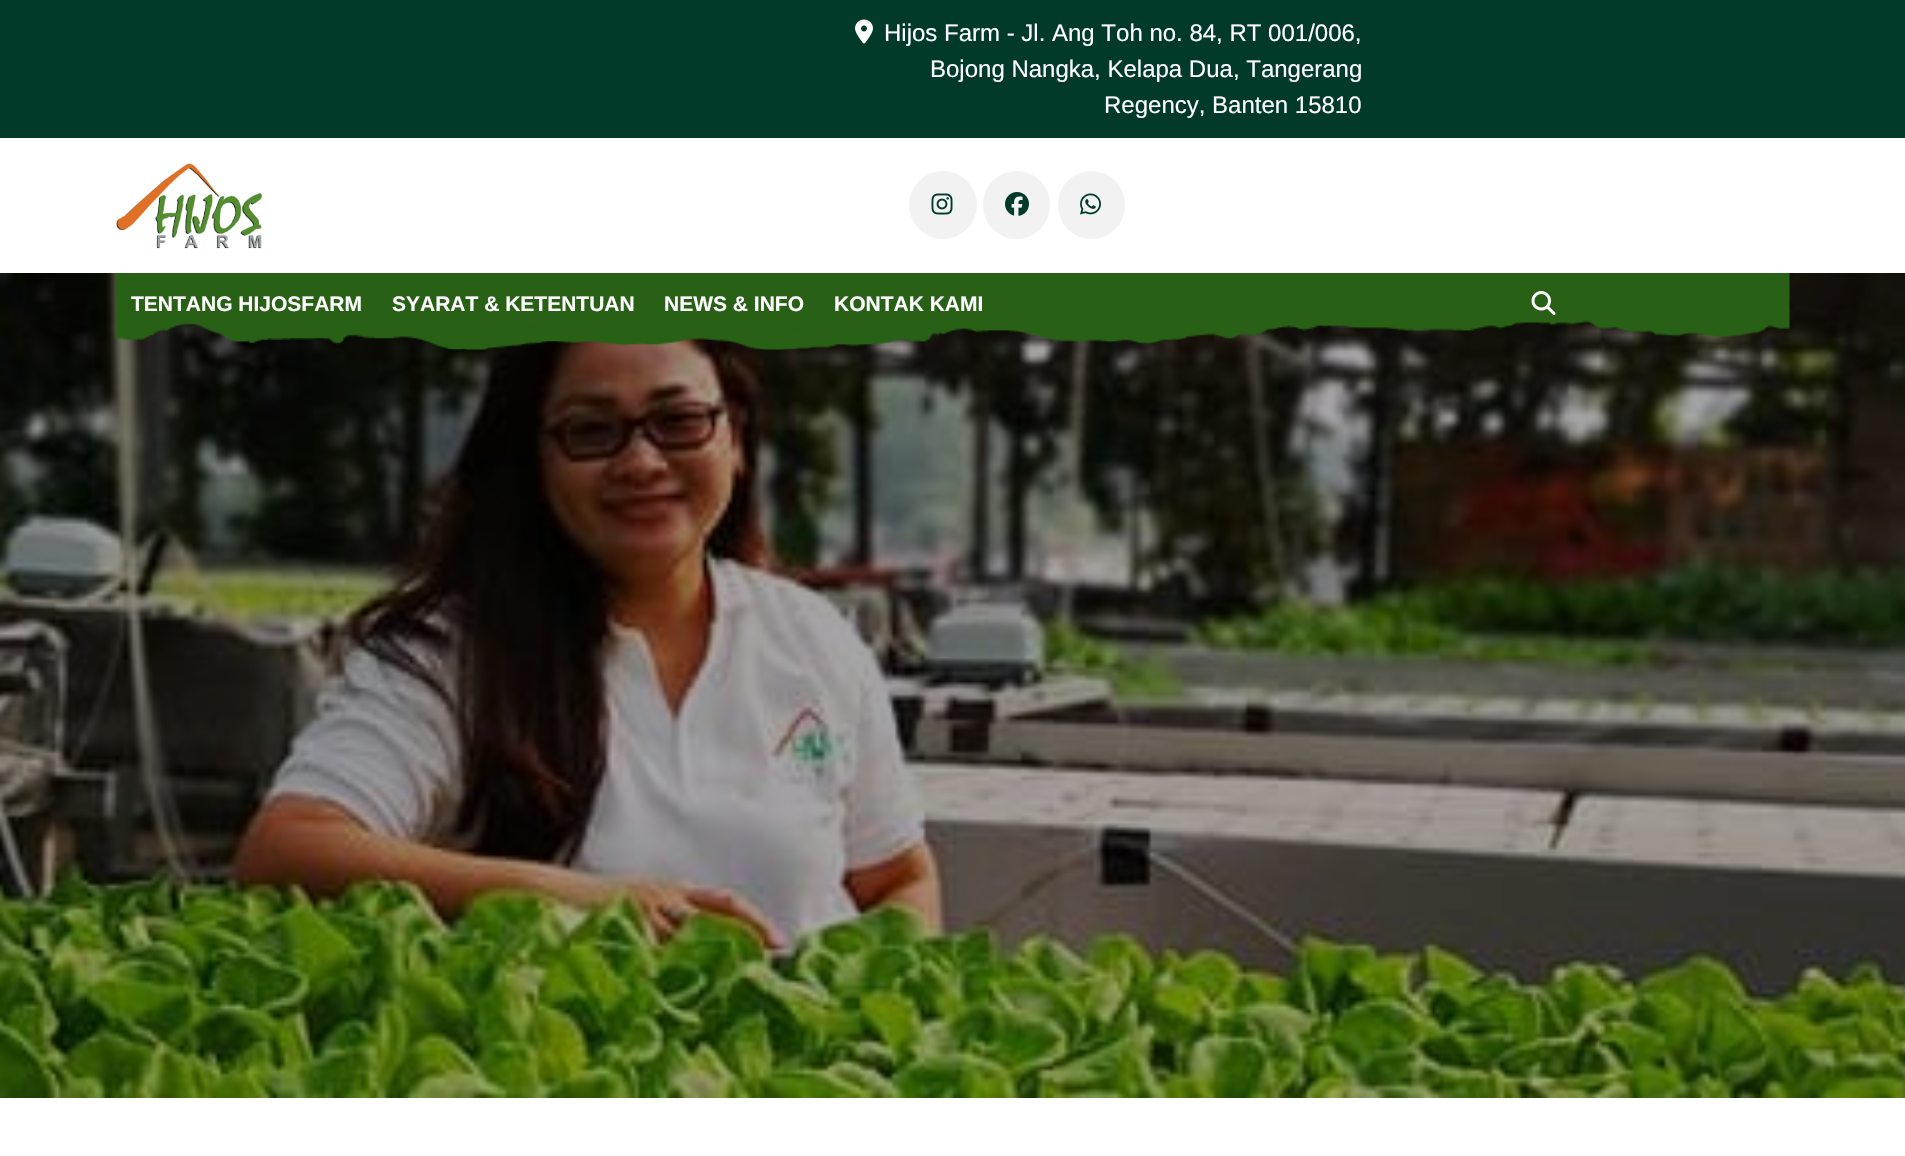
void draw(SkCanvas* canvas) {
	SkPaint fill;
	fill.setAntiAlias(true);
	auto makeFont = [&](const char* family, int weight, float size, bool italic = false) {
		SkFontStyle style(weight, SkFontStyle::kNormal_Width,
			italic ? SkFontStyle::kItalic_Slant : SkFontStyle::kUpright_Slant);
		SkFont result(fontMgr->matchFamilyStyle(family, style), size);
		result.setSubpixel(true);
		return result;
	};
	auto text = [&](const char* s, float x, float y, const SkFont& font) {
		canvas->drawString(s, x, y, font, fill);
	};
	auto box = [&](float l, float t, float r, float b) {
		canvas->drawRect(SkRect::MakeLTRB(l, t, r, b), fill);
	};
	auto roundBox = [&](float l, float t, float r, float b, float radius) {
		canvas->drawRoundRect(SkRect::MakeLTRB(l, t, r, b), radius, radius, fill);
	};
	auto picture = [&](const char* path, float l, float t, float r, float b) {
		auto image = SkImages::DeferredFromEncodedData(SkData::MakeFromFileName(path));
		canvas->drawImageRect(image, SkRect::MakeLTRB(l, t, r, b), SkSamplingOptions());
	};
	canvas->clear(0xFFFFFFFF);
	fill.setColor(0xFF01392B);
	box(0, 0, 1905, 138);
	picture("image0.png", 855, 19, 873, 44);
	picture("image1.png", 116, 163, 263, 249);
	fill.setColor(0xFFF2F2F2);
	canvas->drawCircle(943, 205, 34, fill);
	picture("image2.png", 931, 193, 953, 215);
	roundBox(983, 171, 1050, 239, 33.5f);
	picture("image3.png", 1005, 192, 1029, 216);
	roundBox(1058, 171, 1125, 239, 33.5f);
	picture("image4.png", 1080, 193, 1101, 215);
	picture("image7.png", 0, 273, 1905, 1098);
	picture("image5.png", 115, 273, 1790, 350);
	picture("image6.png", 1531, 291, 1556, 315);
	auto font1 = makeFont("Liberation Sans", 400, 24);
	fill.setColor(0xFFFFFFFF);
	text("Hijos Farm - Jl. Ang Toh no. 84, RT 001/006,", 884, 41, font1);
	text("Bojong Nangka, Kelapa Dua, Tangerang", 930, 77, font1);
	text("Regency, Banten 15810", 1104, 113, font1);
	auto font2 = makeFont("Liberation Sans", 700, 21);
	text("TENTANG HIJOSFARM", 131, 311, font2);
	text("SYARAT & KETENTUAN", 392, 311, font2);
	text("NEWS & INFO", 664, 311, font2);
	text("KONTAK KAMI", 834, 311, font2);
}
